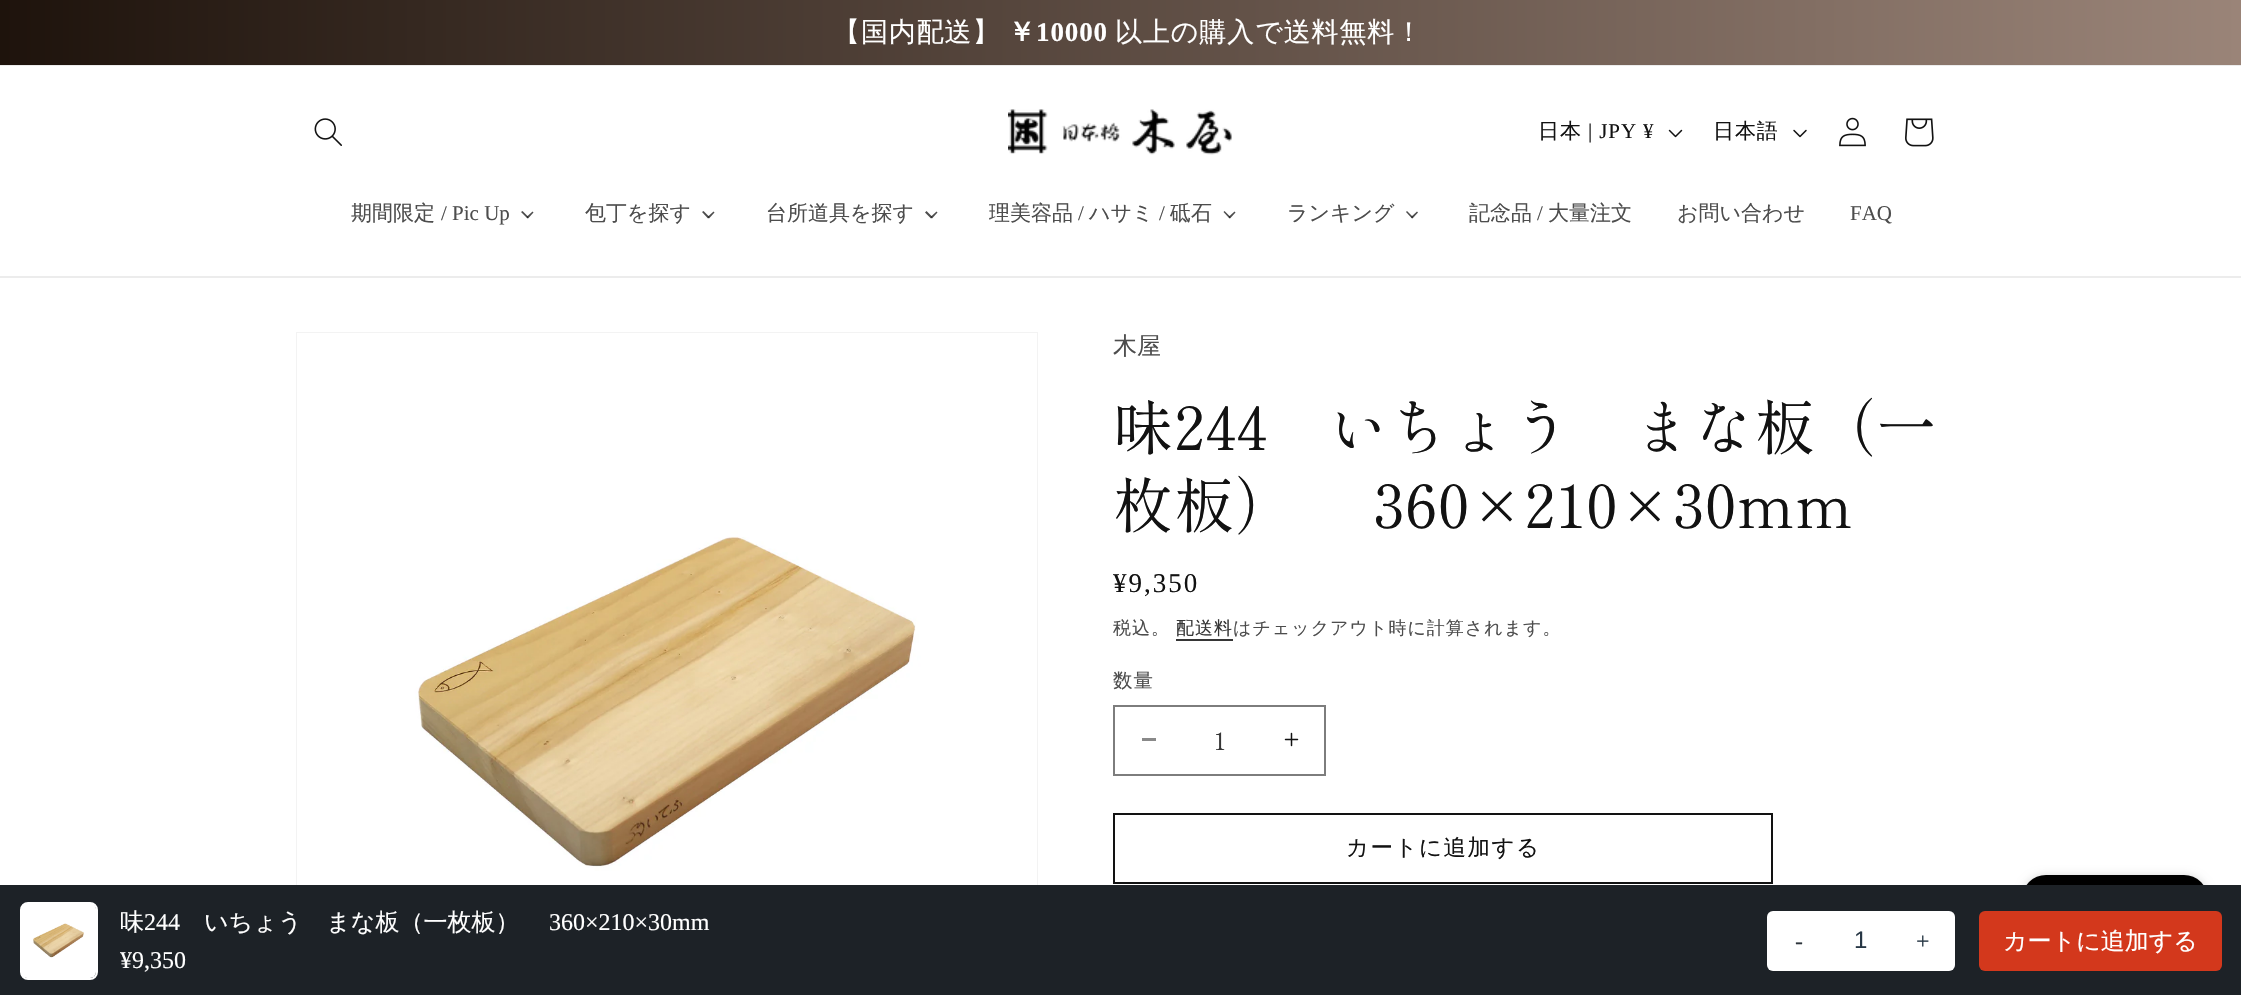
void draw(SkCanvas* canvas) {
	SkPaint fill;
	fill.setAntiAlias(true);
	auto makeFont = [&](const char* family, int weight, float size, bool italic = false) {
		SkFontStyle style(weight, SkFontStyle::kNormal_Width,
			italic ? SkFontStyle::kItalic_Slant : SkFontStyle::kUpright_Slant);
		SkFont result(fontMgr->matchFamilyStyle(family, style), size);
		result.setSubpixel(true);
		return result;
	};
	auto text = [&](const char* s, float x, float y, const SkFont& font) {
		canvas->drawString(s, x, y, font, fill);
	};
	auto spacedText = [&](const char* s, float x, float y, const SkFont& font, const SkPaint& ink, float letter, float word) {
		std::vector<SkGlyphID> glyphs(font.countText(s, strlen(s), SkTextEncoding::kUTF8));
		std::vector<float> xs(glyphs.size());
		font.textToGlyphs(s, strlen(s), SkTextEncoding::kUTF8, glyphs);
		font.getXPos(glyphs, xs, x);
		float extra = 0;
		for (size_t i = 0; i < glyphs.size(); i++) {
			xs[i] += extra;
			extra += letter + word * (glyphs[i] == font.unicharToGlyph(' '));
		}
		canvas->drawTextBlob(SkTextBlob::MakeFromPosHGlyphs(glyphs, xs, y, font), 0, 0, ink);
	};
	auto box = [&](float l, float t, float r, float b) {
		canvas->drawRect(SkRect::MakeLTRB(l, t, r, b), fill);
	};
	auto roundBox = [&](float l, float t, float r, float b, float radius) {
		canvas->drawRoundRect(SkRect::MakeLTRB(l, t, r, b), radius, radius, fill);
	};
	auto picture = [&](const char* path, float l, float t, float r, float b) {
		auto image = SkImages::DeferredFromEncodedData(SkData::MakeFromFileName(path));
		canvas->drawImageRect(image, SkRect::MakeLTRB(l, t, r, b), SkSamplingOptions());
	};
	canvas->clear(0xFFFFFFFF);
	{
		const SkColor colors[] = {0xFF1E130C, 0xFF9A8478};
		const float stops[] = {0, 1};
		const SkPoint ends[] = {{0, 32}, {2241, 32}};
		fill.setShader(SkGradientShader::MakeLinear(ends, colors, stops, 2, SkTileMode::kClamp));
		fill.setAlpha(255);
	}
	box(0, 0, 2241, 65);
	fill.setShader(nullptr);
	fill.setColor(0xFFECECEC);
	box(0, 65, 2241, 66);
	box(0, 276, 2241, 278);
	picture("image0.png", 314, 118, 342, 146);
	picture("image1.png", 1008, 109, 1232, 155);
	picture("image2.png", 1668, 129, 1683, 138);
	picture("image3.png", 1793, 129, 1807, 138);
	picture("image4.png", 1839, 117, 1866, 147);
	picture("image5.png", 1905, 118, 1934, 147);
	fill.setColor(0xFF4D4D4D);
	canvas->drawPath(SkPathBuilder().moveTo(532.5f, 211.5f).lineTo(533.5f, 212.5f).lineTo(528, 218.5f).lineTo(526.5f, 217).close().detach(), fill);
	fill.setColor(0xBF121212);
	canvas->drawPath(SkPathBuilder().moveTo(522.5f, 211).lineTo(528.5f, 217).lineTo(527.5f, 218.5f).lineTo(521, 212).close().detach(), fill);
	fill.setColor(0xFF4D4D4D);
	canvas->drawPath(SkPathBuilder().moveTo(713.5f, 211.5f).lineTo(714.5f, 212.5f).lineTo(709, 218.5f).lineTo(707.5f, 217).close().detach(), fill);
	fill.setColor(0xBF121212);
	canvas->drawPath(SkPathBuilder().moveTo(703.5f, 211).lineTo(709.5f, 217).lineTo(708, 218.5f).lineTo(702, 212).close().detach(), fill);
	fill.setColor(0xFF4D4D4D);
	canvas->drawPath(SkPathBuilder().moveTo(936.5f, 211.5f).lineTo(937.5f, 212.5f).lineTo(932, 218.5f).lineTo(930.5f, 217).close().detach(), fill);
	fill.setColor(0xBF121212);
	canvas->drawPath(SkPathBuilder().moveTo(926.5f, 211).lineTo(932.5f, 217).lineTo(931, 218.5f).lineTo(925, 212.5f).close().detach(), fill);
	fill.setColor(0xFF4D4D4D);
	canvas->drawPath(SkPathBuilder().moveTo(1234.5f, 211.5f).lineTo(1235.5f, 212.5f).lineTo(1230, 218.5f).lineTo(1228.5f, 217).close().detach(), fill);
	fill.setColor(0xBF121212);
	canvas->drawPath(SkPathBuilder().moveTo(1224.5f, 211).lineTo(1230.5f, 217).lineTo(1229.5f, 218.5f).lineTo(1223.5f, 212).close().detach(), fill);
	fill.setColor(0xFF4D4D4D);
	canvas->drawPath(SkPathBuilder().moveTo(1417, 211.5f).lineTo(1418, 212.5f).lineTo(1412.5f, 218.5f).lineTo(1411, 217).close().detach(), fill);
	fill.setColor(0xBF121212);
	canvas->drawPath(SkPathBuilder().moveTo(1407, 211).lineTo(1413, 217).lineTo(1412, 218.5f).lineTo(1406, 212).close().detach(), fill);
	fill.setStyle(SkPaint::kStroke_Style);
	fill.setStrokeWidth(2);
	fill.setColor(0xFFF3F3F3);
	canvas->drawRect(SkRect::MakeLTRB(297, 333, 1037, 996), fill);
	picture("image6.png", 297, 333, 1037, 885);
	fill.setStyle(SkPaint::kFill_Style);
	fill.setColor(0xFF363636);
	box(1176, 639, 1233, 641);
	fill.setColor(0xFF898989);
	box(1142, 738, 1156, 741);
	picture("image7.png", 1284, 732, 1299, 747);
	fill.setStyle(SkPaint::kStroke_Style);
	fill.setColor(0xFF7D7D7D);
	canvas->drawRect(SkRect::MakeLTRB(1114, 706, 1325, 775), fill);
	fill.setColor(0xFF121212);
	canvas->drawRect(SkRect::MakeLTRB(1114, 814, 1772, 883), fill);
	fill.setStyle(SkPaint::kFill_Style);
	fill.setColor(0x26000000);
	fill.setMaskFilter(SkMaskFilter::MakeBlur(kNormal_SkBlurStyle, 4));
	canvas->drawRoundRect(SkRect::MakeLTRB(2022, 875, 2208, 965), 24, 24, fill);
	fill.setMaskFilter(nullptr);
	fill.setColor(0xFF000000);
	roundBox(2022, 875, 2208, 965, 24);
	fill.setColor(0xFF1D2227);
	box(0, 885, 2241, 995);
	picture("image8.png", 21, 903, 96, 978);
	fill.setStyle(SkPaint::kStroke_Style);
	fill.setColor(0xFFFFFFFF);
	canvas->drawRoundRect(SkRect::MakeLTRB(21, 903, 97, 979), 7, 7, fill);
	fill.setStyle(SkPaint::kFill_Style);
	roundBox(1767, 911, 1955, 971, 6);
	fill.setColor(0xFFD3381C);
	roundBox(1979, 911, 2222, 971, 6);
	auto font1 = makeFont("WenQuanYi Zen Hei", 500, 27);
	fill.setColor(0xFFFFFFFF);
	spacedText("【国内配送】", 833, 41, font1, fill, 0.9f, 0);
	auto font2 = makeFont("WenQuanYi Zen Hei", 700, 27);
	spacedText("￥", 1008, 41, font2, fill, 0.9f, 0);
	auto font3 = makeFont("Liberation Serif", 700, 27);
	spacedText("10000", 1036, 41, font3, fill, 0.9f, 0);
	spacedText("以上の購入で送料無料！", 1115, 41, font1, fill, 0.9f, 0);
	auto font4 = makeFont("WenQuanYi Zen Hei", 500, 21);
	fill.setColor(0xFF121212);
	spacedText("日本", 1538, 138, font4, fill, 0.9f, 0);
	auto font5 = makeFont("Liberation Serif", 400, 21);
	spacedText("| JPY ¥", 1588, 138, font5, fill, 0.9f, 0);
	spacedText("日本語", 1713, 138, font4, fill, 0.9f, 0);
	fill.setColor(0xFF4D4D4D);
	text("期間限定", 351, 220, font4);
	text("/ Pic Up", 441, 220, font5);
	text("包丁を探す", 585, 220, font4);
	text("台所道具を探す", 766, 220, font4);
	text("理美容品", 989, 220, font4);
	text("/", 1078, 220, font5);
	text("ハサミ", 1089, 220, font4);
	text("/", 1159, 220, font5);
	text("砥石", 1170, 220, font4);
	text("ランキング", 1287, 220, font4);
	text("記念品", 1469, 220, font4);
	text("/", 1537, 220, font5);
	text("大量注文", 1548, 220, font4);
	text("お問い合わせ", 1677, 220, font4);
	text("FAQ", 1850, 220, font5);
	auto font6 = makeFont("WenQuanYi Zen Hei", 500, 24);
	text("木屋", 1113, 354, font6);
	auto font7 = makeFont("Shippori Mincho", 400, 60);
	fill.setColor(0xFF121212);
	spacedText("味244　いちょう　まな板（一", 1113, 450, font7, fill, 0.9f, 0);
	spacedText("枚板）　 360×210×30mm", 1113, 528, font7, fill, 0.9f, 0);
	auto font8 = makeFont("Liberation Serif", 400, 27);
	spacedText("¥9,350", 1113, 592, font8, fill, 2, 0);
	auto font9 = makeFont("WenQuanYi Zen Hei", 500, 18);
	fill.setColor(0xFF4D4D4D);
	spacedText("税込。", 1113, 634, font9, fill, 1, 0);
	fill.setColor(0xFF363636);
	spacedText("配送料", 1176, 634, font9, fill, 1, 0);
	fill.setColor(0xFF4D4D4D);
	spacedText("はチェックアウト時に計算されます。", 1233, 634, font9, fill, 1, 0);
	auto font10 = makeFont("WenQuanYi Zen Hei", 500, 19.5f);
	spacedText("数量", 1113, 687, font10, fill, 1, 0);
	auto font11 = makeFont("Shippori Mincho", 400, 24);
	fill.setColor(0xFF363636);
	text("1", 1214, 750, font11);
	auto font12 = makeFont("WenQuanYi Zen Hei", 500, 22.5f);
	fill.setColor(0xFF121212);
	spacedText("カートに追加する", 1346, 855, font12, fill, 1.5f, 0);
	fill.setColor(0xFFFFFFFF);
	text("味", 120, 930, font6);
	auto font13 = makeFont("Liberation Serif", 400, 24);
	text("244", 144, 930, font13);
	text("いちょう　まな板（一枚板）", 204, 930, font6);
	text("360×210×30mm", 549, 930, font13);
	text("¥9,350", 120, 968, font13);
	fill.setColor(0xFF2D353C);
	text("-", 1795, 949, font13);
	auto font14 = makeFont("Liberation Sans", 400, 24);
	fill.setColor(0xFF263644);
	text("1", 1854, 948, font14);
	text("+", 1916, 949, font13);
	fill.setColor(0xFFFFFFFF);
	text("カートに追加する", 2003, 949, font6);
}
